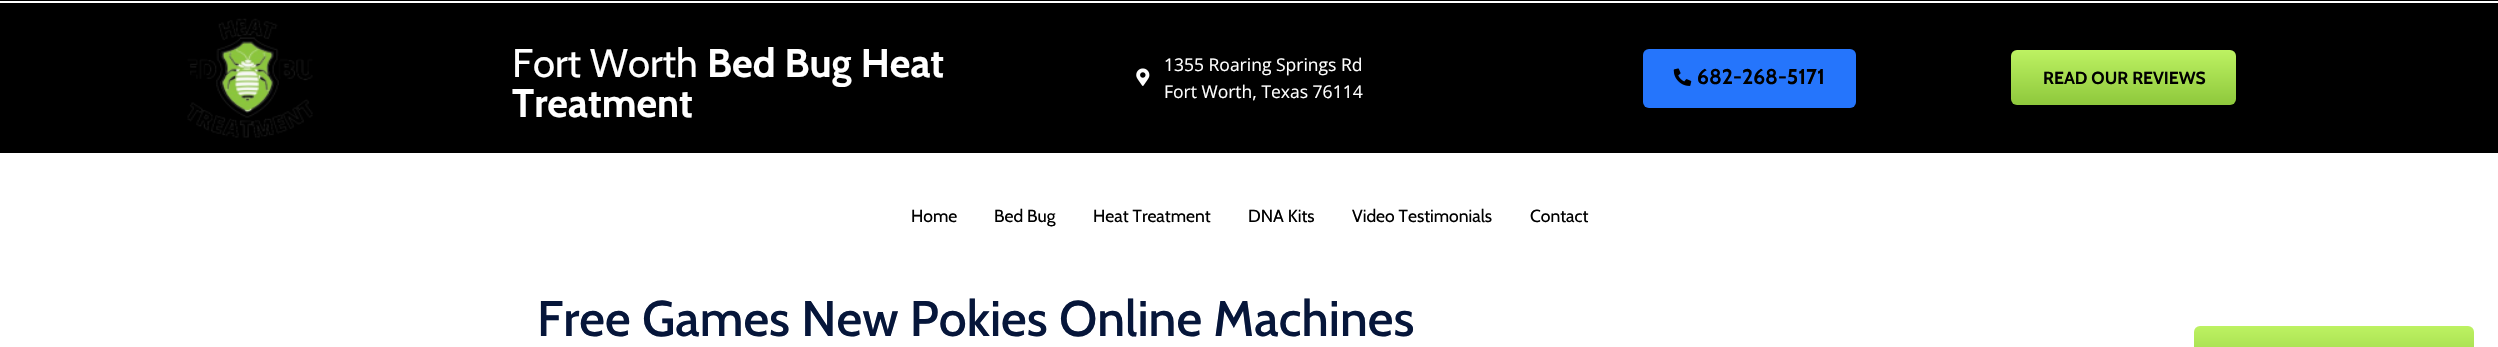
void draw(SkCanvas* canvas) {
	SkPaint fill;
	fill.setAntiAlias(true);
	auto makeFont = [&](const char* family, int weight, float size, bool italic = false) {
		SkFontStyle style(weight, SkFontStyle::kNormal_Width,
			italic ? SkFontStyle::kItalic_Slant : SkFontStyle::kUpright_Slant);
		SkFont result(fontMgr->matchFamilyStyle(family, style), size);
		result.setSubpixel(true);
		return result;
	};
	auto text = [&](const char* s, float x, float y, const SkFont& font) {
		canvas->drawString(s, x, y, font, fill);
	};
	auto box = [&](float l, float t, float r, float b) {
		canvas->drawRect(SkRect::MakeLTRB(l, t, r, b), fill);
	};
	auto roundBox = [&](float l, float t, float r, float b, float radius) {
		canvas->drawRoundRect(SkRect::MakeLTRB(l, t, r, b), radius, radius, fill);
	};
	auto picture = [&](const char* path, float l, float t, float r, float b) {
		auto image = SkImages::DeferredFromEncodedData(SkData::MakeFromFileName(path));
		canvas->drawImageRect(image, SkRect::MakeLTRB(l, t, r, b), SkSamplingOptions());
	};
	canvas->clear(0xFFFFFFFF);
	fill.setColor(0xFF000000);
	box(0, 0, 2498, 1);
	box(0, 3, 2498, 153);
	picture("image0.png", 187, 18, 313, 138);
	picture("image1.png", 1136, 68, 1150, 86);
	fill.setColor(0xFF2575FC);
	roundBox(1643, 49, 1856, 108, 6);
	picture("image2.png", 1673, 68, 1692, 86);
	{
		const SkColor colors[] = {0xFFBDF262, 0xFF8EC83C};
		const float stops[] = {0, 1};
		const SkPoint ends[] = {{2124, 50}, {2124, 105}};
		fill.setShader(SkGradientShader::MakeLinear(ends, colors, stops, 2, SkTileMode::kClamp));
		fill.setAlpha(255);
	}
	roundBox(2011, 50, 2236, 105, 6);
	{
		const SkColor colors[] = {0xFFBDF262, 0xFF8EC83C};
		const float stops[] = {0, 1};
		const SkPoint ends[] = {{2334, 326}, {2334, 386}};
		fill.setShader(SkGradientShader::MakeLinear(ends, colors, stops, 2, SkTileMode::kClamp));
		fill.setAlpha(255);
	}
	roundBox(2194, 326, 2474, 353, 6);
	auto font1 = makeFont("Cabin", 400, 40);
	fill.setShader(nullptr);
	fill.setColor(0xFFFFFFFF);
	text("Fort Worth", 512, 77, font1);
	auto font2 = makeFont("Cabin", 700, 40);
	text("Bed Bug Heat", 707, 77, font2);
	text("Treatment", 512, 117, font2);
	auto font3 = makeFont("Open Sans", 400, 17.5f);
	text("1355 Roaring Springs Rd", 1164, 71, font3);
	text("Fort Worth, Texas 76114", 1164, 98, font3);
	auto font4 = makeFont("Cabin", 700, 21.25f);
	fill.setColor(0xFF000000);
	text("682-268-5171", 1697, 84, font4);
	auto font5 = makeFont("Cabin", 700, 17.5f);
	text("READ OUR REVIEWS", 2043, 84, font5);
	auto font6 = makeFont("Cabin", 400, 17.5f);
	text("Home", 911, 222, font6);
	text("Bed Bug", 994, 222, font6);
	text("Heat Treatment", 1093, 222, font6);
	text("DNA Kits", 1248, 222, font6);
	text("Video Testimonials", 1352, 222, font6);
	text("Contact", 1530, 222, font6);
	auto font7 = makeFont("Cabin", 500, 50);
	fill.setColor(0xFF06163A);
	text("Free Games New Pokies Online Machines", 537, 336, font7);
}
